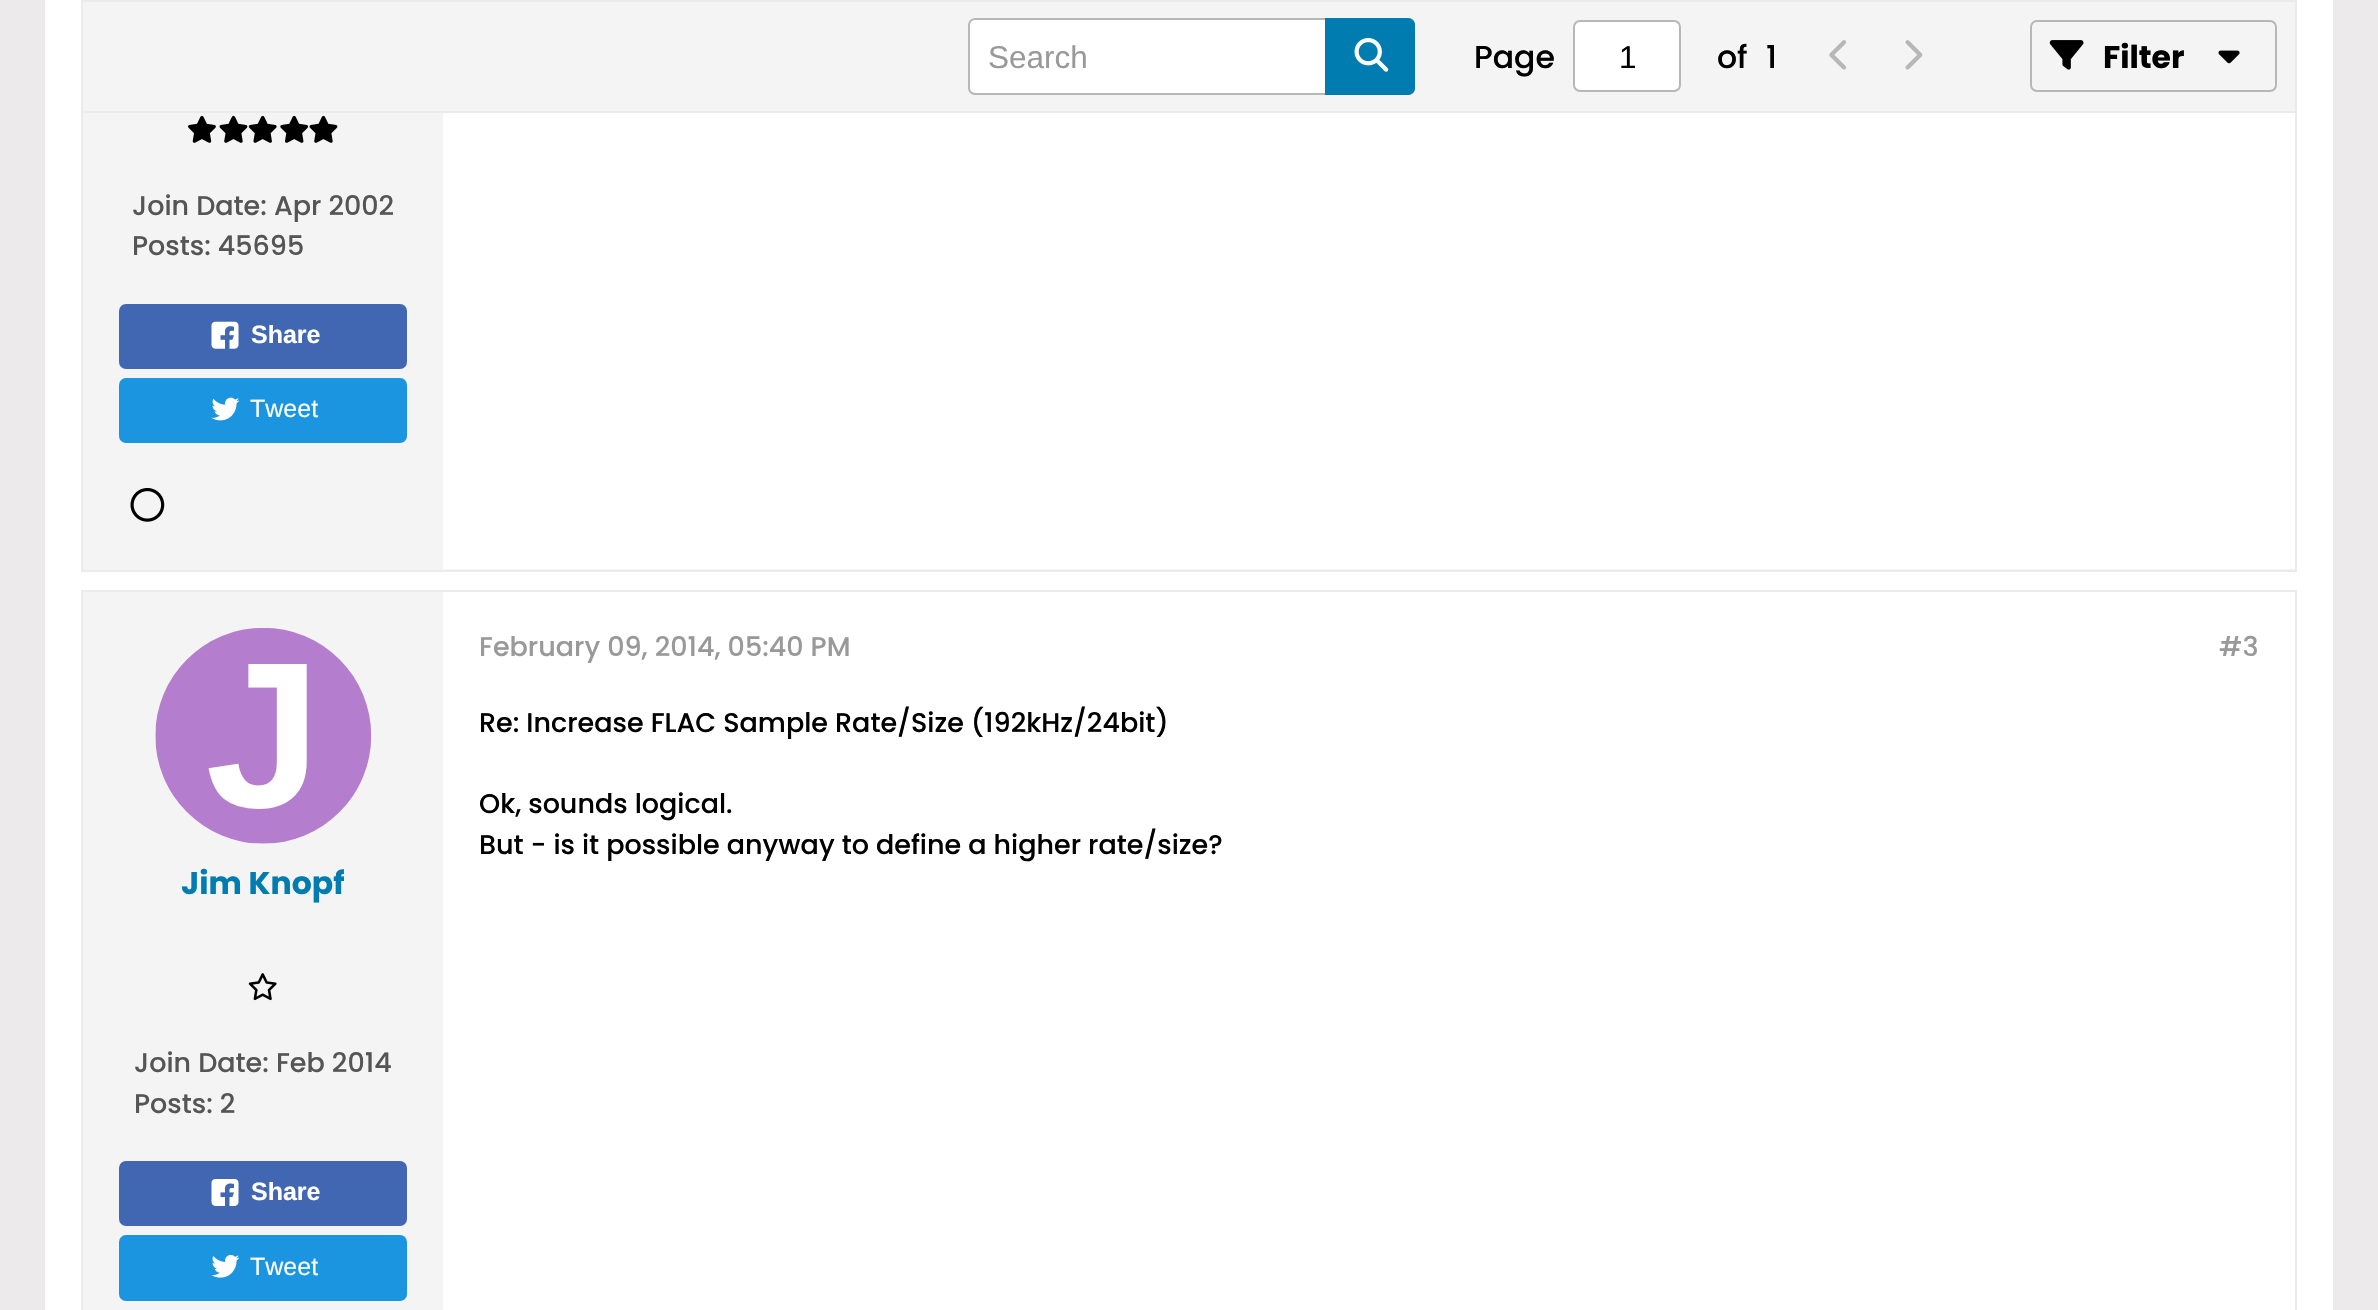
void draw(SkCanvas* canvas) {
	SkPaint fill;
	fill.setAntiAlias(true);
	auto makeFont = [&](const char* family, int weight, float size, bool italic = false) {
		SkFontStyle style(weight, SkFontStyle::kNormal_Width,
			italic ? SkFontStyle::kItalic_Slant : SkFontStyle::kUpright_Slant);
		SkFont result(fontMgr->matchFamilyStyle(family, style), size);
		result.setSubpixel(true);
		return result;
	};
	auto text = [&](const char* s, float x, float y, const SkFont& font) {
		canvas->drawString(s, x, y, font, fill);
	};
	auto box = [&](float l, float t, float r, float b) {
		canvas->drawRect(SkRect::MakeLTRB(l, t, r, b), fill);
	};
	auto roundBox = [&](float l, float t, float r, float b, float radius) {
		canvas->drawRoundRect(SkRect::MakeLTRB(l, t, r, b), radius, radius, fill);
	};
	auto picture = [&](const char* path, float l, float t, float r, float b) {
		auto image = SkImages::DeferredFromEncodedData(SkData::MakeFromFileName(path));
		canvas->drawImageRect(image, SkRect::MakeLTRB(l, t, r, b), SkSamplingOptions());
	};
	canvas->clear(0xFFECEAEA);
	fill.setColor(0xFFFFFFFF);
	box(45, 0, 2333, 1310);
	fill.setColor(0xFFF5F4F4);
	box(83, 113, 2295, 570);
	fill.setStyle(SkPaint::kStroke_Style);
	fill.setStrokeWidth(2);
	fill.setColor(0xFFECEAEA);
	canvas->drawRect(SkRect::MakeLTRB(82, -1, 2296, 571), fill);
	fill.setStyle(SkPaint::kFill_Style);
	fill.setColor(0xFFF5F4F4);
	canvas->drawRect(SkRect::MakeLTRB(82, 1, 2296, 112), fill);
	fill.setStyle(SkPaint::kStroke_Style);
	fill.setColor(0xFFECEAEA);
	canvas->drawRect(SkRect::MakeLTRB(82, 1, 2296, 112), fill);
	fill.setStyle(SkPaint::kFill_Style);
	fill.setColor(0xFFFFFFFF);
	canvas->drawRoundRect(SkRect::MakeLTRB(969, 19, 1414, 94), 6, 6, fill);
	fill.setStyle(SkPaint::kStroke_Style);
	fill.setColor(0xFFB7B7B7);
	canvas->drawRoundRect(SkRect::MakeLTRB(969, 19, 1414, 94), 6, 6, fill);
	fill.setStyle(SkPaint::kFill_Style);
	fill.setColor(0xFF007CB0);
	canvas->drawPath(SkPathBuilder().moveTo(1325, 18).lineTo(1408, 18).cubicTo(1412, 18, 1415, 21, 1415, 25).lineTo(1415, 88).cubicTo(1415, 92, 1412, 95, 1408, 95).lineTo(1325, 95).close().detach(), fill);
	picture("image0.png", 1354, 38, 1389, 72);
	fill.setColor(0xFFFFFFFF);
	canvas->drawRoundRect(SkRect::MakeLTRB(1574, 21, 1680, 91), 6, 6, fill);
	fill.setStyle(SkPaint::kStroke_Style);
	fill.setColor(0xFFB7B7B7);
	canvas->drawRoundRect(SkRect::MakeLTRB(1574, 21, 1680, 91), 6, 6, fill);
	picture("image1.png", 1829, 40, 1847, 70);
	picture("image2.png", 1905, 40, 1923, 70);
	canvas->drawRoundRect(SkRect::MakeLTRB(2031, 21, 2276, 91), 6, 6, fill);
	picture("image3.png", 2049, 40, 2084, 70);
	picture("image4.png", 2218, 50, 2240, 64);
	picture("image5.png", 188, 115, 216, 143);
	picture("image6.png", 219, 115, 248, 143);
	picture("image7.png", 248, 115, 277, 143);
	picture("image8.png", 280, 115, 309, 143);
	picture("image6.png", 309, 115, 338, 143);
	fill.setStyle(SkPaint::kFill_Style);
	fill.setColor(0xFF4267B2);
	roundBox(119, 304, 407, 369, 7);
	picture("image9.png", 211, 321, 239, 349);
	fill.setColor(0xFF1B95E0);
	roundBox(119, 378, 407, 443, 7);
	picture("image10.png", 211, 397, 240, 421);
	picture("image11.png", 130, 488, 165, 522);
	fill.setColor(0xFFFFFFFF);
	box(443, 113, 2295, 569);
	fill.setColor(0xFFF5F4F4);
	box(83, 592, 443, 1310);
	fill.setStyle(SkPaint::kStroke_Style);
	fill.setColor(0xFFECEAEA);
	canvas->drawRect(SkRect::MakeLTRB(82, 591, 2296, 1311), fill);
	picture("image12.png", 155, 628, 371, 844);
	picture("image13.png", 248, 973, 277, 1001);
	fill.setStyle(SkPaint::kFill_Style);
	fill.setColor(0xFF4267B2);
	roundBox(119, 1161, 407, 1226, 7);
	picture("image14.png", 211, 1179, 239, 1206);
	fill.setColor(0xFF1B95E0);
	roundBox(119, 1235, 407, 1301, 7);
	picture("image15.png", 211, 1254, 240, 1278);
	auto font1 = makeFont("Liberation Sans", 400, 31.5f);
	fill.setColor(0xFF999999);
	text("Search", 988, 68, font1);
	auto font2 = makeFont("Poppins", 500, 31.5f);
	fill.setColor(0xFF000000);
	text("Page", 1474, 68, font2);
	text("1", 1619, 68, font1);
	text("of", 1717, 68, font2);
	text("1", 1766, 68, font2);
	auto font3 = makeFont("Poppins", 700, 31.5f);
	text("Filter", 2103, 68, font3);
	auto font4 = makeFont("Poppins", 500, 27);
	fill.setColor(0xFF555555);
	text("Join Date: Apr 2002", 132, 215, font4);
	text("Posts: 45695", 132, 255, font4);
	auto font5 = makeFont("Liberation Sans", 700, 25);
	fill.setColor(0xFFFFFFFF);
	text("Share", 251, 343, font5);
	auto font6 = makeFont("Liberation Sans", 400, 25);
	text("Tweet", 250, 417, font6);
	fill.setColor(0xFF999999);
	text("February 09, 2014, 05:40 PM", 479, 656, font4);
	text("#3", 2219, 656, font4);
	fill.setColor(0xFF000000);
	text("Re: Increase FLAC Sample Rate/Size (192kHz/24bit)", 479, 732, font4);
	text("Ok, sounds logical.", 479, 813, font4);
	text("But - is it possible anyway to define a higher rate/size?", 479, 854, font4);
	fill.setColor(0xFF007CB0);
	text("Jim Knopf", 181, 894, font3);
	fill.setColor(0xFF555555);
	text("Join Date: Feb 2014", 134, 1072, font4);
	text("Posts: 2", 134, 1113, font4);
	fill.setColor(0xFFFFFFFF);
	text("Share", 251, 1200, font5);
	text("Tweet", 250, 1275, font6);
}
